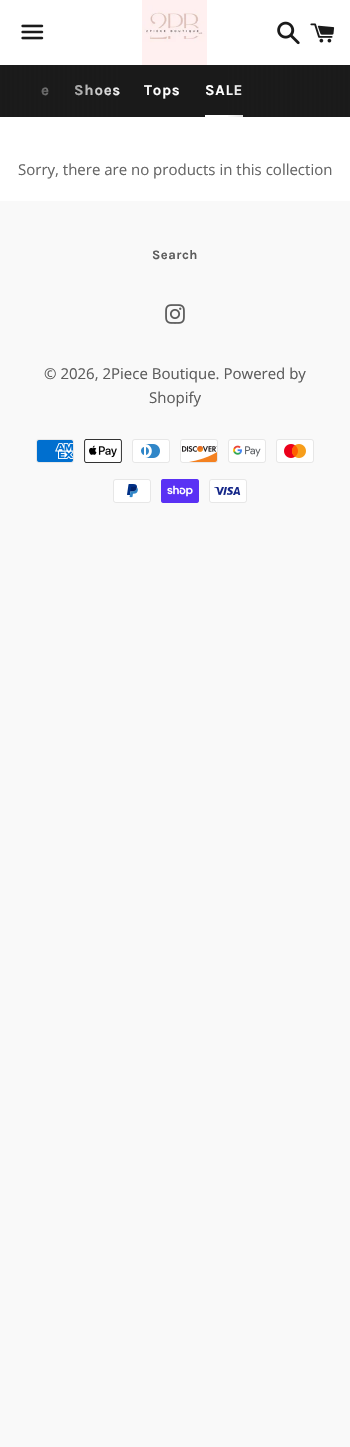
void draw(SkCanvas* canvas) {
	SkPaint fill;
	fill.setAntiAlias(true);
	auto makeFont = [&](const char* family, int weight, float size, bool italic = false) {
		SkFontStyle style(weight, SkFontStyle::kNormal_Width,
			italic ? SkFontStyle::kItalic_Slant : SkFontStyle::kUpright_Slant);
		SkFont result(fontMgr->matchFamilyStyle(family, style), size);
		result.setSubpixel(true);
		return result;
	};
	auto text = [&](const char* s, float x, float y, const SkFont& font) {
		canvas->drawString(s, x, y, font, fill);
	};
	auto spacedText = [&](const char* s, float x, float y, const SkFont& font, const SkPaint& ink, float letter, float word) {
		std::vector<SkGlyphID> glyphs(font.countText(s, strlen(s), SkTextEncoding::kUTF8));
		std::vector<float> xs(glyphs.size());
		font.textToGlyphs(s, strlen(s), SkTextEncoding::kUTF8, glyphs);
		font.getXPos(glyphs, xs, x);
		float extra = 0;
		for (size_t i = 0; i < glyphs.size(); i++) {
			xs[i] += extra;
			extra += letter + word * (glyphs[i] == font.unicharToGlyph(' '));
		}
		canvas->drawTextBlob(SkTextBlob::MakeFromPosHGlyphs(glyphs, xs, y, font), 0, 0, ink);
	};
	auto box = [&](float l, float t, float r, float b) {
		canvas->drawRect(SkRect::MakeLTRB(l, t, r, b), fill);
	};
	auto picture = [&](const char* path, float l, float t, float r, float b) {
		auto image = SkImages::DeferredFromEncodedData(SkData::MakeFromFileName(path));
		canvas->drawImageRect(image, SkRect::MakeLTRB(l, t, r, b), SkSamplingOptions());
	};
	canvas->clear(0xFFF9F9F9);
	fill.setColor(0xFFFFFFFF);
	box(0, 0, 350, 201);
	picture("image0.png", 21, 24, 44, 40);
	picture("image1.png", 142, 0, 207, 65);
	picture("image2.png", 277, 21, 300, 45);
	picture("image3.png", 310, 23, 335, 43);
	fill.setColor(0xFF1A1A1A);
	box(1, 65, 349, 117);
	fill.setColor(0xFFFFFFFF);
	box(205, 115, 243, 117);
	picture("image4.png", 165, 304, 185, 324);
	picture("image5.png", 36, 439, 74, 463);
	picture("image6.png", 84, 439, 122, 463);
	picture("image7.png", 132, 439, 170, 463);
	picture("image8.png", 180, 439, 218, 463);
	picture("image9.png", 228, 439, 266, 463);
	picture("image10.png", 276, 439, 314, 463);
	picture("image11.png", 113, 479, 151, 503);
	picture("image12.png", 161, 479, 199, 503);
	picture("image13.png", 209, 479, 247, 503);
	auto font1 = makeFont("Karla", 700, 15);
	spacedText("e", 41, 95, font1, fill, 0.75f, 0);
	spacedText("Shoes", 74, 95, font1, fill, 0.75f, 0);
	{
		const SkColor colors[] = {0x001A1A1A, 0xFF1A1A1A};
		const float stops[] = {0, 1};
		const SkPoint ends[] = {{125, 91}, {0, 91}};
		fill.setShader(SkGradientShader::MakeLinear(ends, colors, stops, 2, SkTileMode::kClamp));
		fill.setAlpha(255);
	}
	box(0, 65, 119, 117);
	fill.setShader(nullptr);
	fill.setColor(0xFFFFFFFF);
	spacedText("Tops", 144, 95, font1, fill, 0.75f, 0);
	spacedText("SALE", 205, 95, font1, fill, 0.75f, 0);
	{
		const SkColor colors[] = {0x001A1A1A, 0xFF1A1A1A};
		const float stops[] = {0, 1};
		const SkPoint ends[] = {{225, 91}, {350, 91}};
		fill.setShader(SkGradientShader::MakeLinear(ends, colors, stops, 2, SkTileMode::kClamp));
		fill.setAlpha(255);
	}
	box(228, 65, 350, 117);
	auto font2 = makeFont("Open Sans", 400, 15);
	fill.setShader(nullptr);
	fill.setColor(0xFF666666);
	text("Sorry, there are no products in this collection", 18, 175, font2);
	auto font3 = makeFont("Karla", 700, 13);
	fill.setColor(0xFF5C5C5C);
	spacedText("Search", 152, 259, font3, fill, 0.5f, 0);
	text("© 2026, 2Piece Boutique. Powered by", 44, 379, font2);
	text("Shopify", 149, 403, font2);
}
